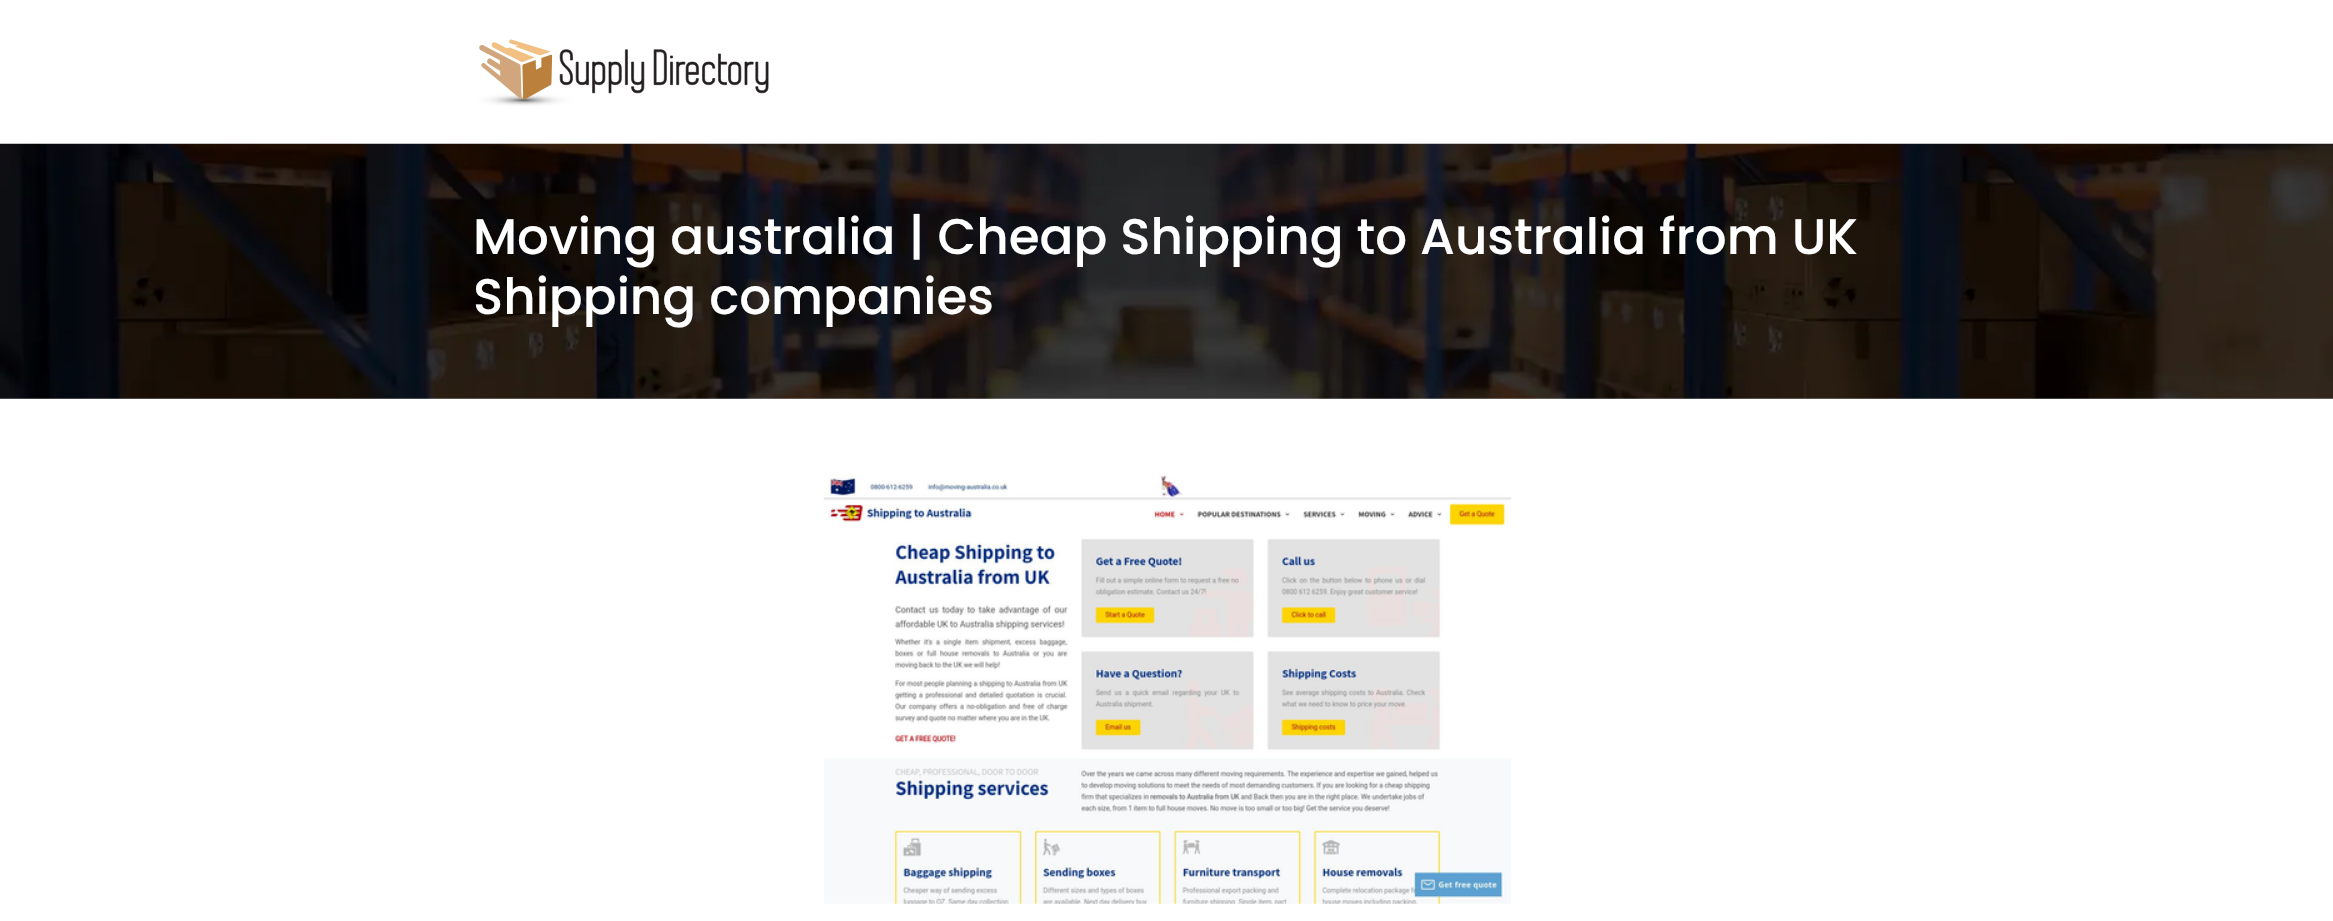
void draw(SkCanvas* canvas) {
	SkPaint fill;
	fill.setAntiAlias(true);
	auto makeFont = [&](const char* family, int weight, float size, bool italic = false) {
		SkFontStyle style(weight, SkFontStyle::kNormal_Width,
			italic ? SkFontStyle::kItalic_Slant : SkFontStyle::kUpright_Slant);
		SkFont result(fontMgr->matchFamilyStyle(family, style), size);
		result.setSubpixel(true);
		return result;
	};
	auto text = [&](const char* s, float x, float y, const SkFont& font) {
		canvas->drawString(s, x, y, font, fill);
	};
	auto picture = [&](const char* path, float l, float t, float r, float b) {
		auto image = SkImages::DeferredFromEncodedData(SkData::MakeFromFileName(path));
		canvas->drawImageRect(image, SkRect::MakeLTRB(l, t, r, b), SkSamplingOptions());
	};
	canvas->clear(0xFFFFFFFF);
	picture("image0.png", 479, 39, 769, 106);
	picture("image1.png", 0, 143, 2333, 399);
	picture("image2.png", 823, 474, 1512, 904);
	auto font1 = makeFont("Poppins", 500, 50);
	fill.setColor(0xFFFFFFFF);
	text("Moving australia | Cheap Shipping to Australia from UK", 473, 254, font1);
	text("Shipping companies", 473, 314, font1);
}
